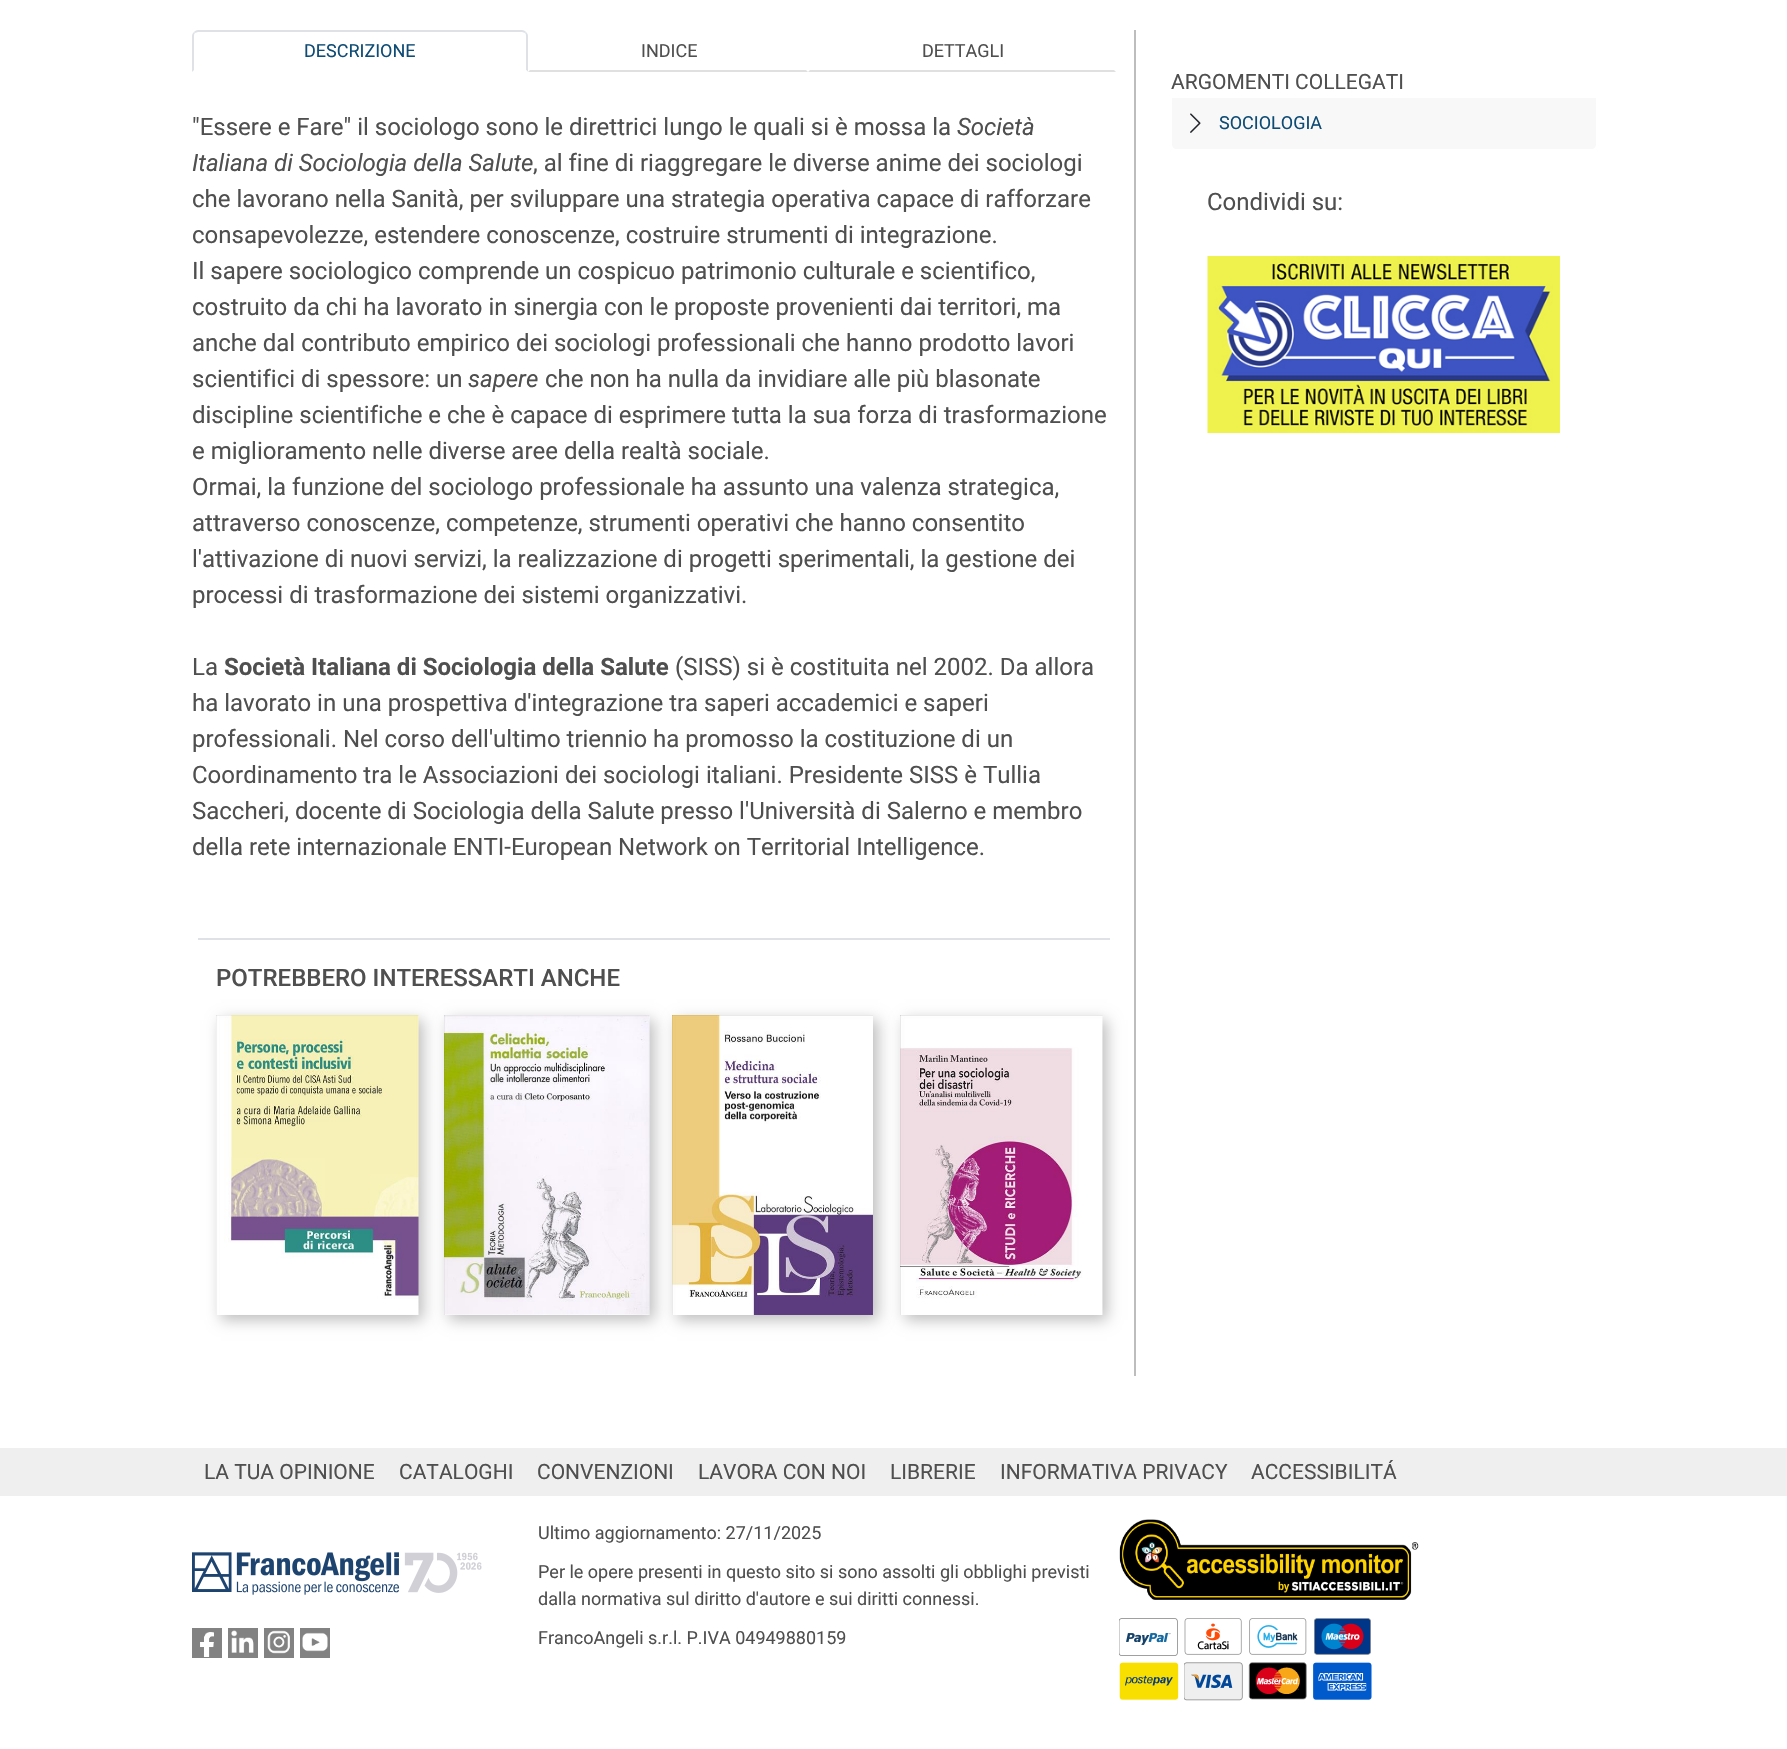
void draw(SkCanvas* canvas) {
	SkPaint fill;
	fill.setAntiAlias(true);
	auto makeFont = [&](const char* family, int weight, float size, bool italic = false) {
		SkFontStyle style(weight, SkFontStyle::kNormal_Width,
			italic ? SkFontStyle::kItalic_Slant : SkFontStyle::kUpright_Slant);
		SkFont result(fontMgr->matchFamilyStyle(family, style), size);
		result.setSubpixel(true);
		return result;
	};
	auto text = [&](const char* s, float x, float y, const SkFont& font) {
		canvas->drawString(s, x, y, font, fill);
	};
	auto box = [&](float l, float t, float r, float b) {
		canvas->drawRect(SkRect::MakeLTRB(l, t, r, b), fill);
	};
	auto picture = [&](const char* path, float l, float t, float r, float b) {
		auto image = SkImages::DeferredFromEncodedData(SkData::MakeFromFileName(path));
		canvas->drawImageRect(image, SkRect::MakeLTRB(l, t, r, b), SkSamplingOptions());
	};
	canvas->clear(0xFFFFFFFF);
	fill.setColor(0xFFDEE2E6);
	canvas->drawPath(SkPathBuilder().moveTo(198, 30).cubicTo(196, 30, 195, 31, 194, 32).lineTo(195, 33).lineTo(198, 32).lineTo(522, 32).lineTo(525, 33).lineTo(526, 32).cubicTo(525, 31, 524, 30, 522, 30).close().detach(), fill);
	canvas->drawPath(SkPathBuilder().moveTo(528, 72).lineTo(528, 36).cubicTo(528, 34, 527, 33, 526, 32).lineTo(525, 33).cubicTo(526, 34, 526, 35, 526, 36).lineTo(526, 70).close().detach(), fill);
	fill.setColor(0xFFFFFFFF);
	canvas->drawPath(SkPathBuilder().moveTo(528, 72).lineTo(526, 70).lineTo(194, 70).lineTo(192, 72).close().detach(), fill);
	fill.setColor(0xFFDEE2E6);
	canvas->drawPath(SkPathBuilder().moveTo(192, 72).lineTo(194, 70).lineTo(194, 36).cubicTo(194, 35, 194, 34, 195, 33).lineTo(194, 32).cubicTo(193, 33, 192, 34, 192, 36).close().detach(), fill);
	fill.setColor(0xFFE0E0E0);
	canvas->drawPath(SkPathBuilder().moveTo(808, 72).lineTo(806, 70).lineTo(530, 70).lineTo(528, 72).close().detach(), fill);
	canvas->drawPath(SkPathBuilder().moveTo(1116, 72).lineTo(1114, 70).lineTo(810, 70).lineTo(808, 72).close().detach(), fill);
	fill.setColor(0xFFDEE2E6);
	box(198, 938, 1110, 940);
	fill.setColor(0xFFBDBDBD);
	fill.setMaskFilter(SkMaskFilter::MakeBlur(kNormal_SkBlurStyle, 7));
	canvas->drawRect(SkRect::MakeLTRB(221, 1020, 423, 1320), fill);
	fill.setMaskFilter(nullptr);
	picture("image0.png", 216, 1015, 419, 1315);
	fill.setMaskFilter(SkMaskFilter::MakeBlur(kNormal_SkBlurStyle, 7));
	canvas->drawRect(SkRect::MakeLTRB(449, 1020, 654, 1320), fill);
	fill.setMaskFilter(nullptr);
	picture("image1.png", 444, 1015, 650, 1315);
	fill.setMaskFilter(SkMaskFilter::MakeBlur(kNormal_SkBlurStyle, 7));
	canvas->drawRect(SkRect::MakeLTRB(677, 1020, 878, 1320), fill);
	fill.setMaskFilter(nullptr);
	picture("image2.png", 672, 1015, 873, 1315);
	fill.setMaskFilter(SkMaskFilter::MakeBlur(kNormal_SkBlurStyle, 7));
	canvas->drawRect(SkRect::MakeLTRB(905, 1020, 1107, 1320), fill);
	fill.setMaskFilter(nullptr);
	picture("image3.png", 900, 1015, 1103, 1315);
	box(1134, 30, 1136, 1376);
	fill.setColor(0xFFF8F8F8);
	canvas->drawPath(SkPathBuilder().moveTo(1172, 98).lineTo(1596, 98).lineTo(1596, 144).cubicTo(1596, 147, 1594, 149, 1591, 149).lineTo(1177, 149).cubicTo(1174, 149, 1172, 147, 1172, 144).close().detach(), fill);
	picture("image4.png", 1190, 113, 1201, 133);
	picture("image5.png", 1207, 256, 1560, 433);
	fill.setColor(0xFFEFEFEF);
	box(0, 1448, 1787, 1496);
	picture("image6.png", 192, 1552, 482, 1595);
	fill.setColor(0xFF828282);
	box(192, 1628, 222, 1658);
	picture("image7.png", 200, 1632, 214, 1657);
	box(228, 1628, 258, 1658);
	picture("image8.png", 231, 1630, 254, 1653);
	box(264, 1628, 294, 1658);
	picture("image9.png", 267, 1630, 290, 1654);
	box(300, 1628, 330, 1658);
	picture("image10.png", 302, 1632, 328, 1652);
	picture("image11.png", 1119, 1519, 1419, 1600);
	picture("image12.png", 1119, 1618, 1178, 1656);
	picture("image13.png", 1184, 1618, 1242, 1655);
	picture("image14.png", 1249, 1618, 1307, 1655);
	picture("image15.png", 1314, 1618, 1371, 1655);
	picture("image16.png", 1119, 1662, 1179, 1700);
	picture("image17.png", 1184, 1662, 1243, 1701);
	picture("image18.png", 1248, 1662, 1307, 1700);
	picture("image19.png", 1313, 1662, 1372, 1700);
	auto font1 = makeFont("Roboto", 400, 18);
	fill.setColor(0xFF0F4C75);
	text("DESCRIZIONE", 304, 57, font1);
	fill.setColor(0xFF4F4F4F);
	text("INDICE", 641, 57, font1);
	text("DETTAGLI", 922, 57, font1);
	auto font2 = makeFont("Roboto", 400, 24);
	text("\"Essere e Fare\" il sociologo sono le direttrici lungo le quali si è mossa la", 192, 135, font2);
	auto font3 = makeFont("Roboto", 400, 24, true);
	text("Società", 957, 135, font3);
	text("Italiana di Sociologia della Salute", 192, 171, font3);
	text(", al fine di riaggregare le diverse anime dei sociologi", 533, 171, font2);
	text("che lavorano nella Sanità, per sviluppare una strategia operativa capace di rafforzare", 192, 207, font2);
	text("consapevolezze, estendere conoscenze, costruire strumenti di integrazione.", 192, 243, font2);
	text("Il sapere sociologico comprende un cospicuo patrimonio culturale e scientifico,", 192, 279, font2);
	text("costruito da chi ha lavorato in sinergia con le proposte provenienti dai territori, ma", 192, 315, font2);
	text("anche dal contributo empirico dei sociologi professionali che hanno prodotto lavori", 192, 351, font2);
	text("scientifici di spessore: un", 192, 387, font2);
	text("sapere", 468, 387, font3);
	text("che non ha nulla da invidiare alle più blasonate", 545, 387, font2);
	text("discipline scientifiche e che è capace di esprimere tutta la sua forza di trasformazione", 192, 423, font2);
	text("e miglioramento nelle diverse aree della realtà sociale.", 192, 459, font2);
	text("Ormai, la funzione del sociologo professionale ha assunto una valenza strategica,", 192, 495, font2);
	text("attraverso conoscenze, competenze, strumenti operativi che hanno consentito", 192, 531, font2);
	text("l'attivazione di nuovi servizi, la realizzazione di progetti sperimentali, la gestione dei", 192, 567, font2);
	text("processi di trasformazione dei sistemi organizzativi.", 192, 603, font2);
	text("La", 192, 675, font2);
	auto font4 = makeFont("Roboto", 700, 24);
	text("Società Italiana di Sociologia della Salute", 224, 675, font4);
	text("(SISS) si è costituita nel 2002. Da allora", 675, 675, font2);
	text("ha lavorato in una prospettiva d'integrazione tra saperi accademici e saperi", 192, 711, font2);
	text("professionali. Nel corso dell'ultimo triennio ha promosso la costituzione di un", 192, 747, font2);
	text("Coordinamento tra le Associazioni dei sociologi italiani. Presidente SISS è Tullia", 192, 783, font2);
	text("Saccheri, docente di Sociologia della Salute presso l'Università di Salerno e membro", 192, 819, font2);
	text("della rete internazionale ENTI-European Network on Territorial Intelligence.", 192, 855, font2);
	auto font5 = makeFont("Roboto", 500, 24);
	text("POTREBBERO INTERESSARTI ANCHE", 216, 986, font5);
	auto font6 = makeFont("Roboto", 400, 21);
	text("ARGOMENTI COLLEGATI", 1171, 89, font6);
	fill.setColor(0xFF0F4C75);
	text("SOCIOLOGIA", 1219, 129, font1);
	fill.setColor(0xFF4F4F4F);
	text("Condividi su:", 1207, 210, font2);
	text("LA TUA OPINIONE", 204, 1479, font6);
	text("CATALOGHI", 399, 1479, font6);
	text("CONVENZIONI", 537, 1479, font6);
	text("LAVORA CON NOI", 698, 1479, font6);
	text("LIBRERIE", 890, 1479, font6);
	text("INFORMATIVA PRIVACY", 1000, 1479, font6);
	text("ACCESSIBILITÁ", 1251, 1479, font6);
	text("Ultimo aggiornamento: 27/11/2025", 538, 1539, font1);
	text("Per le opere presenti in questo sito si sono assolti gli obblighi previsti", 538, 1578, font1);
	text("dalla normativa sul diritto d'autore e sui diritti connessi.", 538, 1605, font1);
	text("FrancoAngeli s.r.l. P.IVA 04949880159", 538, 1644, font1);
}
